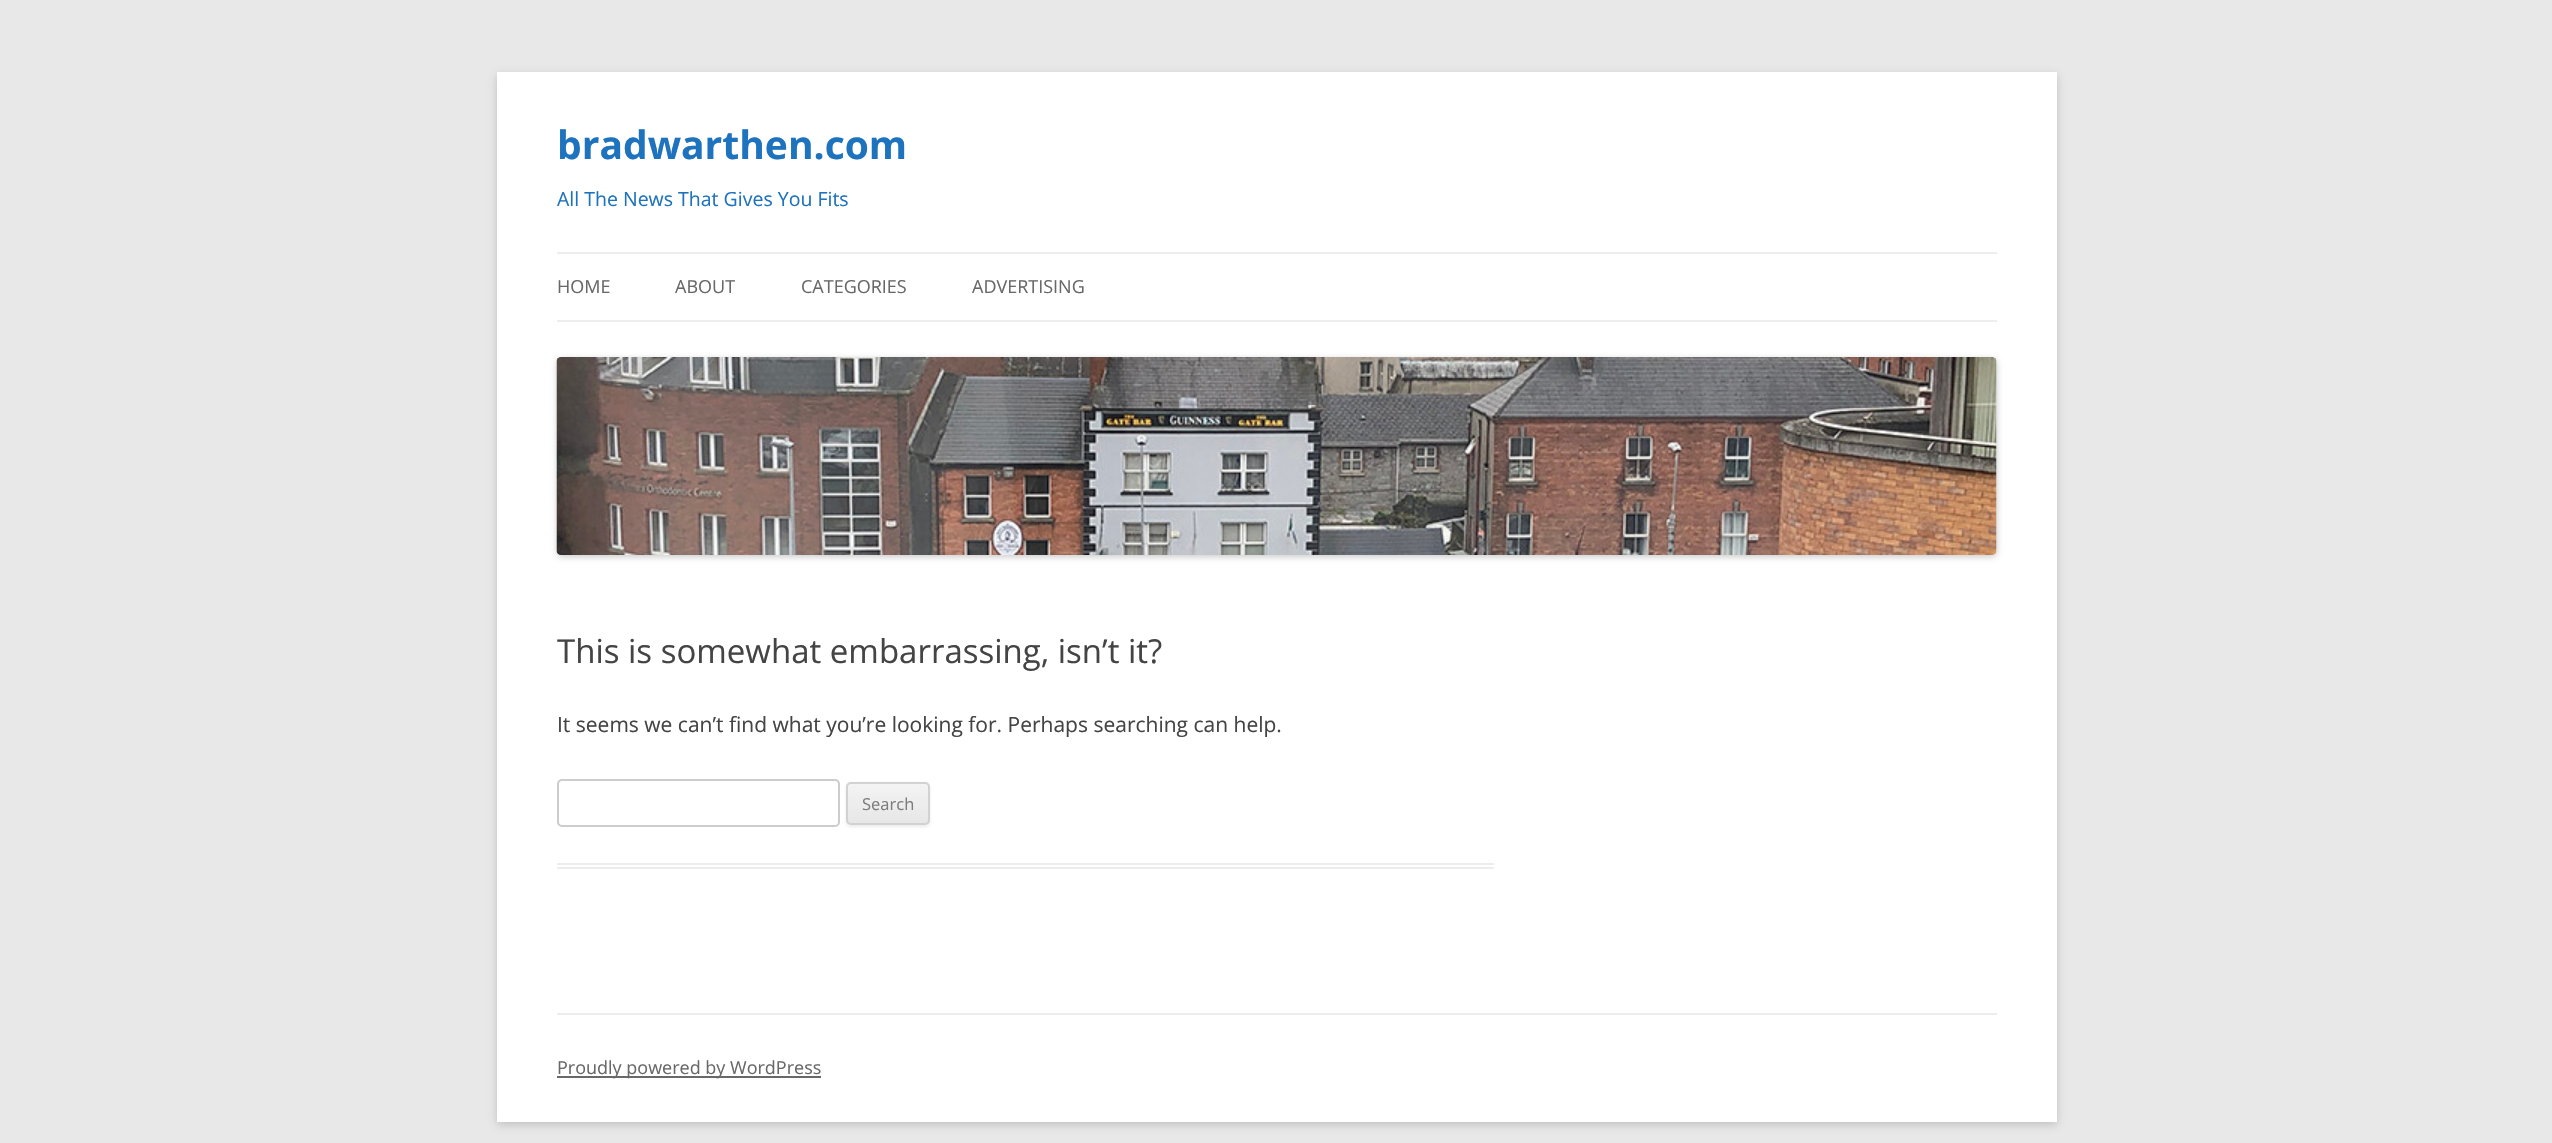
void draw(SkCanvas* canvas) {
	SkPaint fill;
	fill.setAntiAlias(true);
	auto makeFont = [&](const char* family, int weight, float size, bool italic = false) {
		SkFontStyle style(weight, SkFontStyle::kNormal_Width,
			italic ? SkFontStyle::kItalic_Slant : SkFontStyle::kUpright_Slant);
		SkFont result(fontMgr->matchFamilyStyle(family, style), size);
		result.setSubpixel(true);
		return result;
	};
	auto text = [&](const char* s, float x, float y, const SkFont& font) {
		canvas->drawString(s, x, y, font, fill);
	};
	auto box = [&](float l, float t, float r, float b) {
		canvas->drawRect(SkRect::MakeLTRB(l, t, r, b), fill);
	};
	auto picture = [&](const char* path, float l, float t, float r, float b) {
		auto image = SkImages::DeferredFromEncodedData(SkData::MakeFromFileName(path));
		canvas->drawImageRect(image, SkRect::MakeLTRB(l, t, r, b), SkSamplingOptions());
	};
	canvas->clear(0xFFE8E8E8);
	fill.setColor(0x4D646464);
	fill.setMaskFilter(SkMaskFilter::MakeBlur(kNormal_SkBlurStyle, 4.5f));
	canvas->drawRect(SkRect::MakeLTRB(497, 75, 2057, 1125), fill);
	fill.setMaskFilter(nullptr);
	fill.setColor(0xFFFFFFFF);
	box(497, 72, 2057, 1122);
	fill.setColor(0xFFEDEDED);
	box(557, 252, 1997, 254);
	box(557, 320, 1997, 322);
	fill.setColor(0x33000000);
	fill.setMaskFilter(SkMaskFilter::MakeBlur(kNormal_SkBlurStyle, 3));
	canvas->drawRoundRect(SkRect::MakeLTRB(557, 359, 1997, 557), 5, 5, fill);
	fill.setMaskFilter(nullptr);
	picture("image0.png", 556, 357, 1997, 555);
	fill.setColor(0xFFEDEDED);
	box(557, 863, 1494, 865);
	box(557, 867, 1494, 869);
	fill.setStyle(SkPaint::kStroke_Style);
	fill.setStrokeWidth(2);
	fill.setColor(0xFFCCCCCC);
	canvas->drawRoundRect(SkRect::MakeLTRB(558, 780, 839, 826), 4, 4, fill);
	fill.setStyle(SkPaint::kFill_Style);
	fill.setColor(0x1A404040);
	fill.setMaskFilter(SkMaskFilter::MakeBlur(kNormal_SkBlurStyle, 1.5f));
	canvas->drawRoundRect(SkRect::MakeLTRB(846, 783, 930, 827), 5, 5, fill);
	fill.setMaskFilter(nullptr);
	canvas->save();
	canvas->clipPath(SkPathBuilder().moveTo(851, 782).lineTo(925, 782).cubicTo(928, 782, 930, 784, 930, 787).lineTo(930, 820).cubicTo(930, 823, 928, 825, 925, 825).lineTo(851, 825).cubicTo(848, 825, 846, 823, 846, 820).lineTo(846, 787).cubicTo(846, 784, 848, 782, 851, 782).close().detach(), true);
	{
		const SkColor colors[] = {0xFFF4F4F4, 0xFFE6E6E6};
		const float stops[] = {0, 1};
		const SkPoint ends[] = {{888, 783}, {888, 824}};
		fill.setShader(SkGradientShader::MakeLinear(ends, colors, stops, 2, SkTileMode::kClamp));
		fill.setAlpha(255);
	}
	box(846, 783, 930, 824);
	canvas->restore();
	fill.setStyle(SkPaint::kStroke_Style);
	fill.setShader(nullptr);
	fill.setColor(0xFFD2D2D2);
	canvas->drawRoundRect(SkRect::MakeLTRB(847, 783, 929, 824), 4, 4, fill);
	fill.setStyle(SkPaint::kFill_Style);
	fill.setColor(0xFFEDEDED);
	box(557, 1013, 1997, 1015);
	fill.setColor(0xFF686868);
	box(557, 1076, 821, 1078);
	auto font1 = makeFont("Open Sans", 700, 39);
	fill.setColor(0xFF1E73BE);
	text("bradwarthen.com", 557, 159, font1);
	auto font2 = makeFont("Open Sans", 400, 19.5f);
	text("All The News That Gives You Fits", 557, 206, font2);
	auto font3 = makeFont("Open Sans", 400, 18);
	fill.setColor(0xFF686868);
	text("HOME", 557, 293, font3);
	text("ABOUT", 675, 293, font3);
	text("CATEGORIES", 801, 293, font3);
	text("ADVERTISING", 972, 293, font3);
	auto font4 = makeFont("Open Sans", 400, 33);
	fill.setColor(0xFF444444);
	text("This is somewhat embarrassing, isn’t it?", 557, 663, font4);
	auto font5 = makeFont("Open Sans", 400, 21);
	text("It seems we can’t find what you’re looking for. Perhaps searching can help.", 557, 732, font5);
	auto font6 = makeFont("Open Sans", 400, 16.5f);
	fill.setColor(0xFF7C7C7C);
	text("Search", 862, 810, font6);
	fill.setColor(0xFF686868);
	text("Proudly powered by WordPress", 557, 1074, font3);
}
